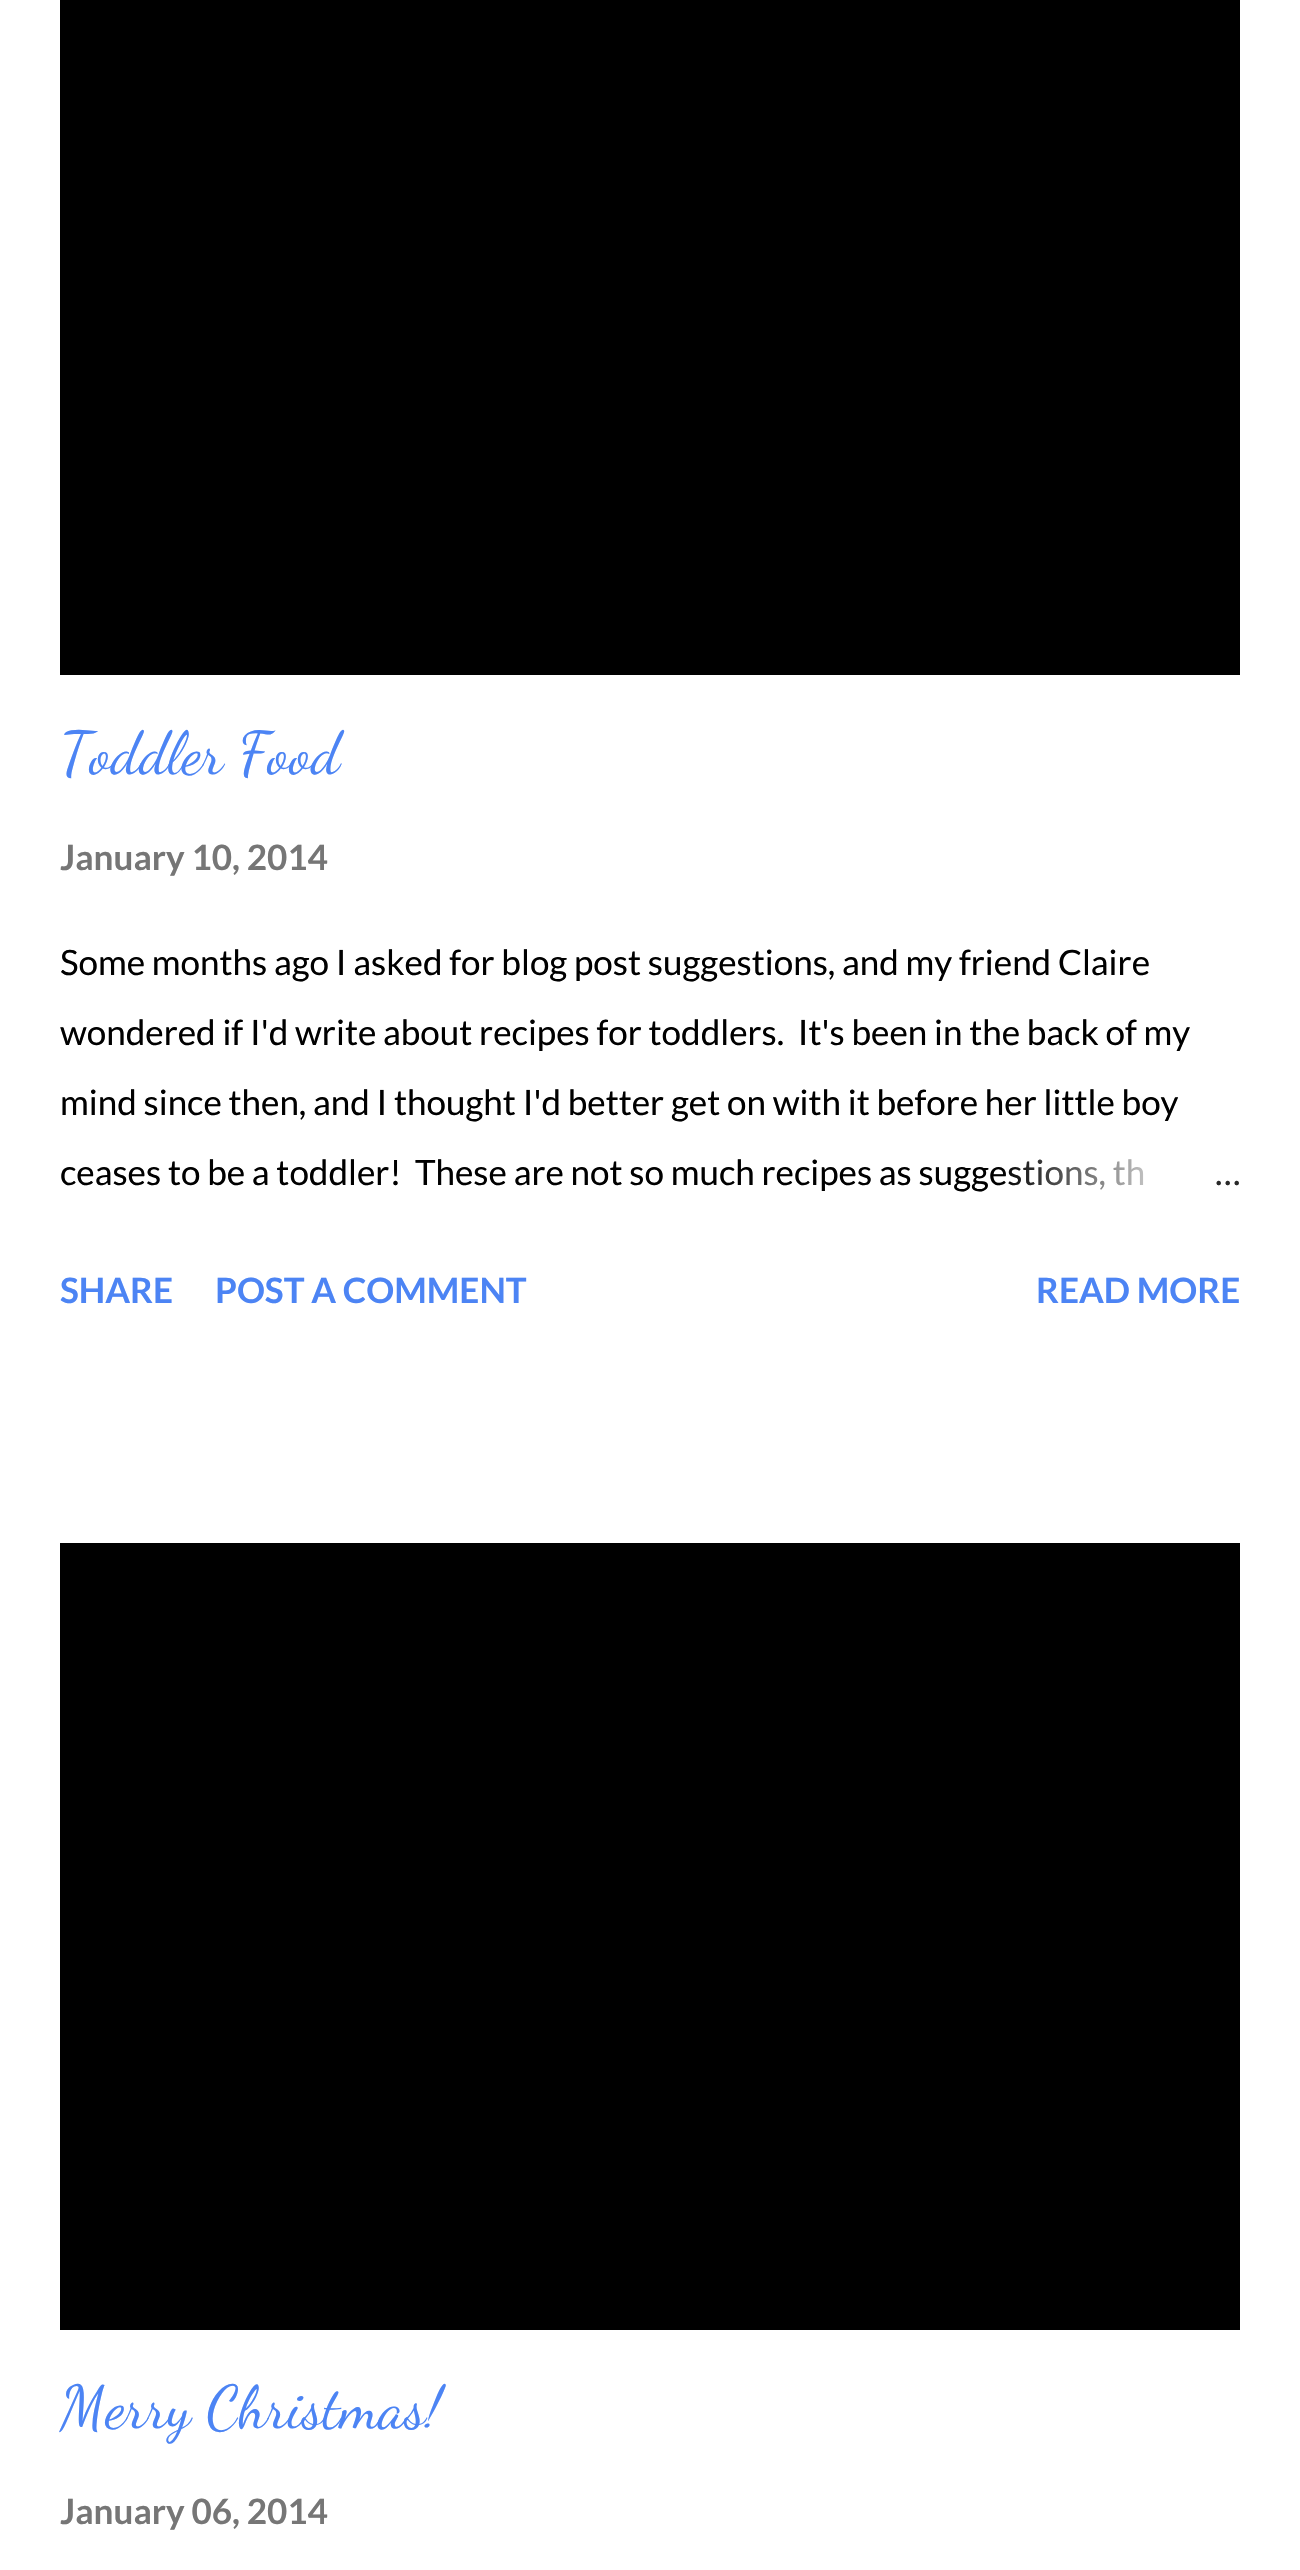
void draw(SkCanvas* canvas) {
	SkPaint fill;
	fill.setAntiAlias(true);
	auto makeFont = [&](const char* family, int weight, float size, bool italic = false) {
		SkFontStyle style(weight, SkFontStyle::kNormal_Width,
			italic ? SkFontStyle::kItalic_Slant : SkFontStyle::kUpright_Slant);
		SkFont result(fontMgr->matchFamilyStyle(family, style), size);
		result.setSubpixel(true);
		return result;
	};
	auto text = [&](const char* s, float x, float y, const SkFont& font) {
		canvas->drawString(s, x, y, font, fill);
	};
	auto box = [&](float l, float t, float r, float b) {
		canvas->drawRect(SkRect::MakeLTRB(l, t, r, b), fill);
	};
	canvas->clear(0xFFFFFFFF);
	fill.setColor(0xFF000000);
	box(60, 0, 1240, 675);
	box(60, 1543, 1240, 2330);
	auto font1 = makeFont("Dancing Script", 400, 60);
	fill.setColor(0xFF4C84F4);
	text("Toddler Food", 60, 773, font1);
	auto font2 = makeFont("Lato", 700, 35);
	fill.setColor(0xFF767676);
	text("January 10, 2014", 60, 870, font2);
	auto font3 = makeFont("Lato", 400, 35);
	fill.setColor(0xFF000000);
	text("Some months ago I asked for blog post suggestions, and my friend Claire", 60, 975, font3);
	text("wondered if I'd write about recipes for toddlers.  It's been in the back of my", 60, 1045, font3);
	text("mind since then, and I thought I'd better get on with it before her little boy", 60, 1115, font3);
	text("ceases to be a toddler!  These are not so much recipes as suggestions, th", 60, 1185, font3);
	{
		const SkColor colors[] = {0xFFFFFFFF, 0xFFFFFFFF, 0x00FFFFFF};
		const float stops[] = {0, 0.2f, 1};
		const SkPoint ends[] = {{1240, 1173}, {1000, 1173}};
		fill.setShader(SkGradientShader::MakeLinear(ends, colors, stops, 3, SkTileMode::kClamp));
		fill.setAlpha(255);
	}
	box(1004, 1159, 1144, 1190);
	fill.setShader(nullptr);
	fill.setColor(0xFF292929);
	text("…", 1215, 1185, font3);
	fill.setColor(0xFF4C84F4);
	text("SHARE", 60, 1303, font2);
	text("POST A COMMENT", 215, 1303, font2);
	text("READ MORE", 1036, 1303, font2);
	text("Merry Christmas!", 60, 2427, font1);
	fill.setColor(0xFF767676);
	text("January 06, 2014", 60, 2524, font2);
}
